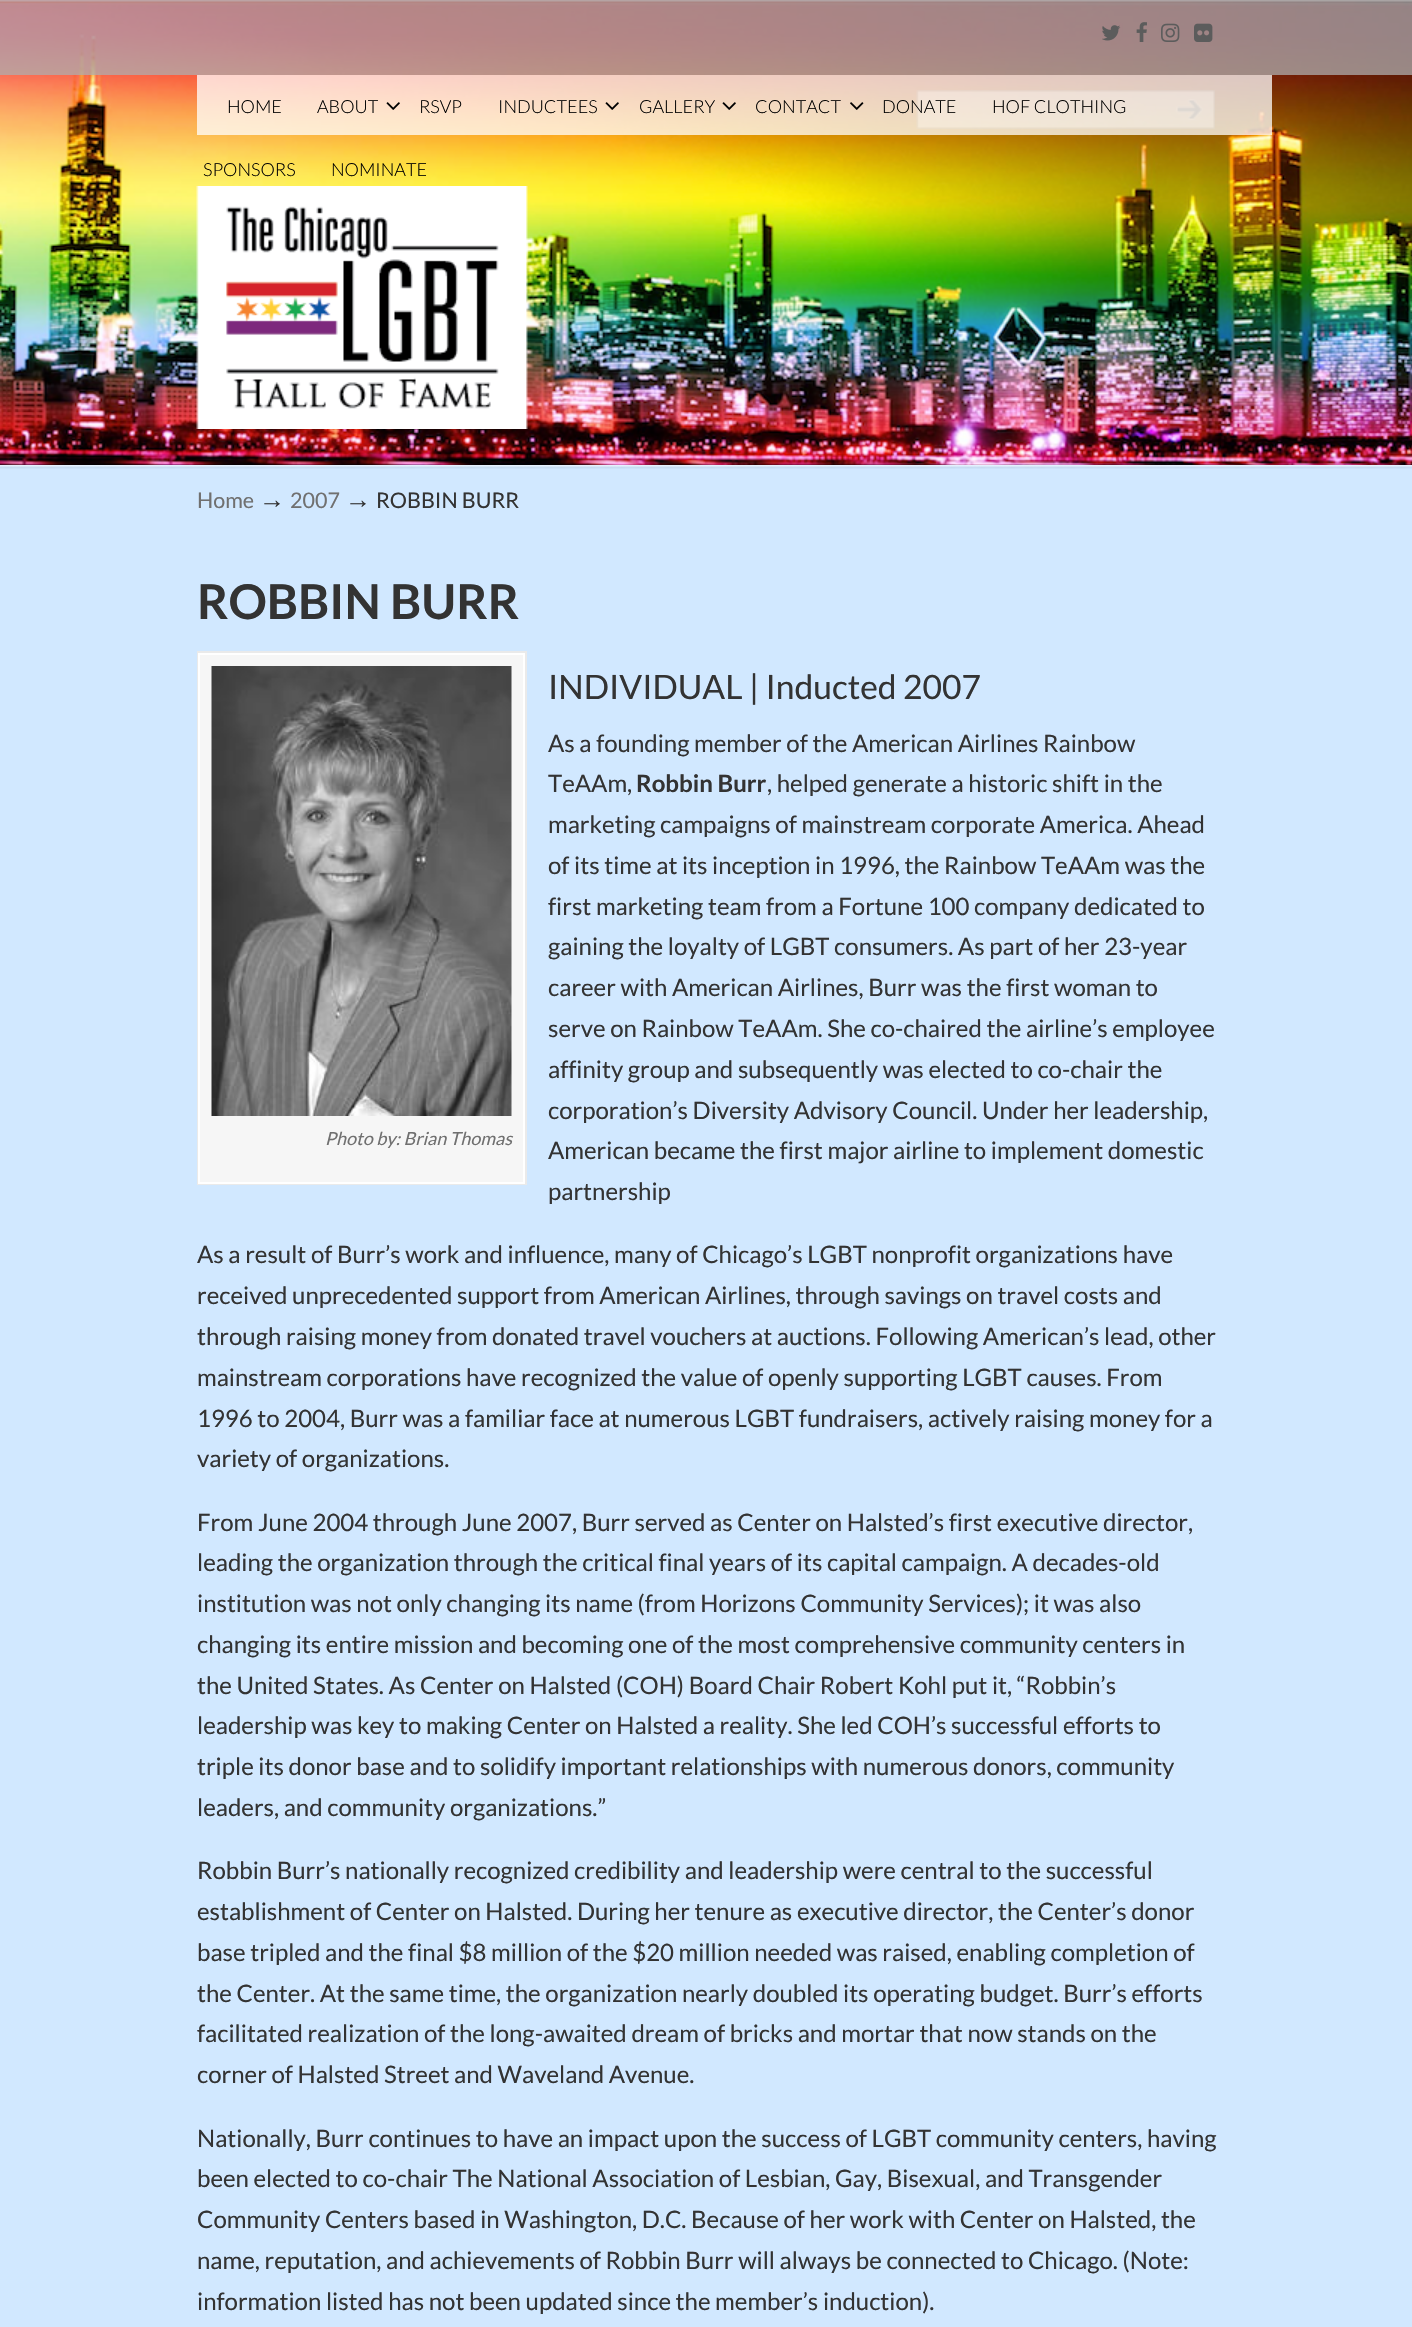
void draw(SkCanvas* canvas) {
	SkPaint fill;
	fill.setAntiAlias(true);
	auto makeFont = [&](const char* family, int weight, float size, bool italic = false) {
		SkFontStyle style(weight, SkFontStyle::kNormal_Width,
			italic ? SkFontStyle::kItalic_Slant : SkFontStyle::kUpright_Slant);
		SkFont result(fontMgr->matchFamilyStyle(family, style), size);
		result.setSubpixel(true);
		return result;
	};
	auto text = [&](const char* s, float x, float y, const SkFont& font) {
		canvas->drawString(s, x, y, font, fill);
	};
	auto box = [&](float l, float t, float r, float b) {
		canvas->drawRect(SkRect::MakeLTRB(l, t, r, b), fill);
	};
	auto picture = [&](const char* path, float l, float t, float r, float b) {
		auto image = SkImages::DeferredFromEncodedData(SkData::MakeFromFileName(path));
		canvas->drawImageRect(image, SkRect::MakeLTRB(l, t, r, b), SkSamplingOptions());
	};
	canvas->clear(0xFFD1E8FF);
	picture("image0.png", 0, 0, 1412, 465);
	fill.setColor(0xBFADADAD);
	box(0, 0, 1412, 75);
	picture("image1.png", 1102, 25, 1121, 41);
	picture("image2.png", 1136, 22, 1147, 42);
	picture("image3.png", 1161, 23, 1180, 42);
	picture("image4.png", 1194, 23, 1213, 42);
	picture("image5.png", 916, 90, 1155, 129);
	picture("image6.png", 1155, 90, 1215, 129);
	picture("image7.png", 196, 186, 528, 429);
	fill.setColor(0xBFFFFFFF);
	box(197, 75, 1272, 135);
	picture("image8.png", 386, 102, 400, 110);
	picture("image9.png", 605, 102, 619, 110);
	picture("image10.png", 722, 102, 736, 110);
	picture("image11.png", 850, 102, 864, 110);
	picture("image12.png", 0, 465, 1412, 469);
	fill.setColor(0xFFF6F6F6);
	box(200, 655, 523, 1182);
	fill.setStyle(SkPaint::kStroke_Style);
	fill.setStrokeWidth(2);
	fill.setColor(0xFFEAEAEA);
	canvas->drawRect(SkRect::MakeLTRB(198, 652, 526, 1184), fill);
	fill.setColor(0xFFFFFFFF);
	canvas->drawRect(SkRect::MakeLTRB(199, 654, 524, 1183), fill);
	picture("image13.png", 211, 666, 512, 1116);
	auto font1 = makeFont("Lato", 300, 18);
	fill.setStyle(SkPaint::kFill_Style);
	fill.setColor(0xFF000000);
	text("HOME", 227, 113, font1);
	text("ABOUT", 317, 113, font1);
	text("RSVP", 419, 113, font1);
	text("INDUCTEES", 498, 113, font1);
	text("GALLERY", 639, 113, font1);
	text("CONTACT", 755, 113, font1);
	text("DONATE", 882, 113, font1);
	text("HOF CLOTHING", 992, 113, font1);
	text("SPONSORS", 203, 176, font1);
	text("NOMINATE", 331, 176, font1);
	auto font2 = makeFont("Lato", 400, 21.5f);
	fill.setColor(0xFF707070);
	text("Home", 197, 508, font2);
	auto font3 = makeFont("Liberation Serif", 400, 26);
	fill.setColor(0xFF333333);
	text("→", 259, 508, font3);
	fill.setColor(0xFF707070);
	text("2007", 290, 508, font2);
	fill.setColor(0xFF333333);
	text("→", 345, 508, font3);
	text("ROBBIN BURR", 376, 508, font2);
	auto font4 = makeFont("Lato", 700, 48);
	text("ROBBIN BURR", 197, 619, font4);
	auto font5 = makeFont("Lato", 400, 33.6f);
	text("INDIVIDUAL | Inducted 2007", 548, 699, font5);
	auto font6 = makeFont("Lato", 400, 18, true);
	fill.setColor(0xFF707070);
	text("Photo by: Brian Thomas", 325, 1145, font6);
	auto font7 = makeFont("Lato", 400, 24);
	fill.setColor(0xFF333333);
	text("As a founding member of the American Airlines Rainbow", 548, 752, font7);
	text("TeAAm,", 548, 792, font7);
	auto font8 = makeFont("Lato", 700, 24);
	text("Robbin Burr", 636, 792, font8);
	text(", helped generate a historic shift in the", 767, 792, font7);
	text("marketing campaigns of mainstream corporate America. Ahead", 548, 833, font7);
	text("of its time at its inception in 1996, the Rainbow TeAAm was the", 548, 874, font7);
	text("first marketing team from a Fortune 100 company dedicated to", 548, 915, font7);
	text("gaining the loyalty of LGBT consumers. As part of her 23-year", 548, 955, font7);
	text("career with American Airlines, Burr was the first woman to", 548, 996, font7);
	text("serve on Rainbow TeAAm. She co-chaired the airline’s employee", 548, 1037, font7);
	text("affinity group and subsequently was elected to co-chair the", 548, 1078, font7);
	text("corporation’s Diversity Advisory Council. Under her leadership,", 548, 1119, font7);
	text("American became the first major airline to implement domestic", 548, 1159, font7);
	text("partnership", 548, 1200, font7);
	text("As a result of Burr’s work and influence, many of Chicago’s LGBT nonprofit organizations have", 197, 1263, font7);
	text("received unprecedented support from American Airlines, through savings on travel costs and", 197, 1304, font7);
	text("through raising money from donated travel vouchers at auctions. Following American’s lead, other", 197, 1345, font7);
	text("mainstream corporations have recognized the value of openly supporting LGBT causes. From", 197, 1386, font7);
	text("1996 to 2004, Burr was a familiar face at numerous LGBT fundraisers, actively raising money for a", 197, 1427, font7);
	text("variety of organizations.", 197, 1467, font7);
	text("From June 2004 through June 2007, Burr served as Center on Halsted’s first executive director,", 197, 1531, font7);
	text("leading the organization through the critical final years of its capital campaign. A decades-old", 197, 1571, font7);
	text("institution was not only changing its name (from Horizons Community Services); it was also", 197, 1612, font7);
	text("changing its entire mission and becoming one of the most comprehensive community centers in", 197, 1653, font7);
	text("the United States. As Center on Halsted (COH) Board Chair Robert Kohl put it, “Robbin’s", 197, 1694, font7);
	text("leadership was key to making Center on Halsted a reality. She led COH’s successful efforts to", 197, 1734, font7);
	text("triple its donor base and to solidify important relationships with numerous donors, community", 197, 1775, font7);
	text("leaders, and community organizations.”", 197, 1816, font7);
	text("Robbin Burr’s nationally recognized credibility and leadership were central to the successful", 197, 1879, font7);
	text("establishment of Center on Halsted. During her tenure as executive director, the Center’s donor", 197, 1920, font7);
	text("base tripled and the final $8 million of the $20 million needed was raised, enabling completion of", 197, 1961, font7);
	text("the Center. At the same time, the organization nearly doubled its operating budget. Burr’s efforts", 197, 2002, font7);
	text("facilitated realization of the long-awaited dream of bricks and mortar that now stands on the", 197, 2042, font7);
	text("corner of Halsted Street and Waveland Avenue.", 197, 2083, font7);
	text("Nationally, Burr continues to have an impact upon the success of LGBT community centers, having", 197, 2147, font7);
	text("been elected to co-chair The National Association of Lesbian, Gay, Bisexual, and Transgender", 197, 2187, font7);
	text("Community Centers based in Washington, D.C. Because of her work with Center on Halsted, the", 197, 2228, font7);
	text("name, reputation, and achievements of Robbin Burr will always be connected to Chicago. (Note:", 197, 2269, font7);
	text("information listed has not been updated since the member’s induction).", 197, 2310, font7);
}
